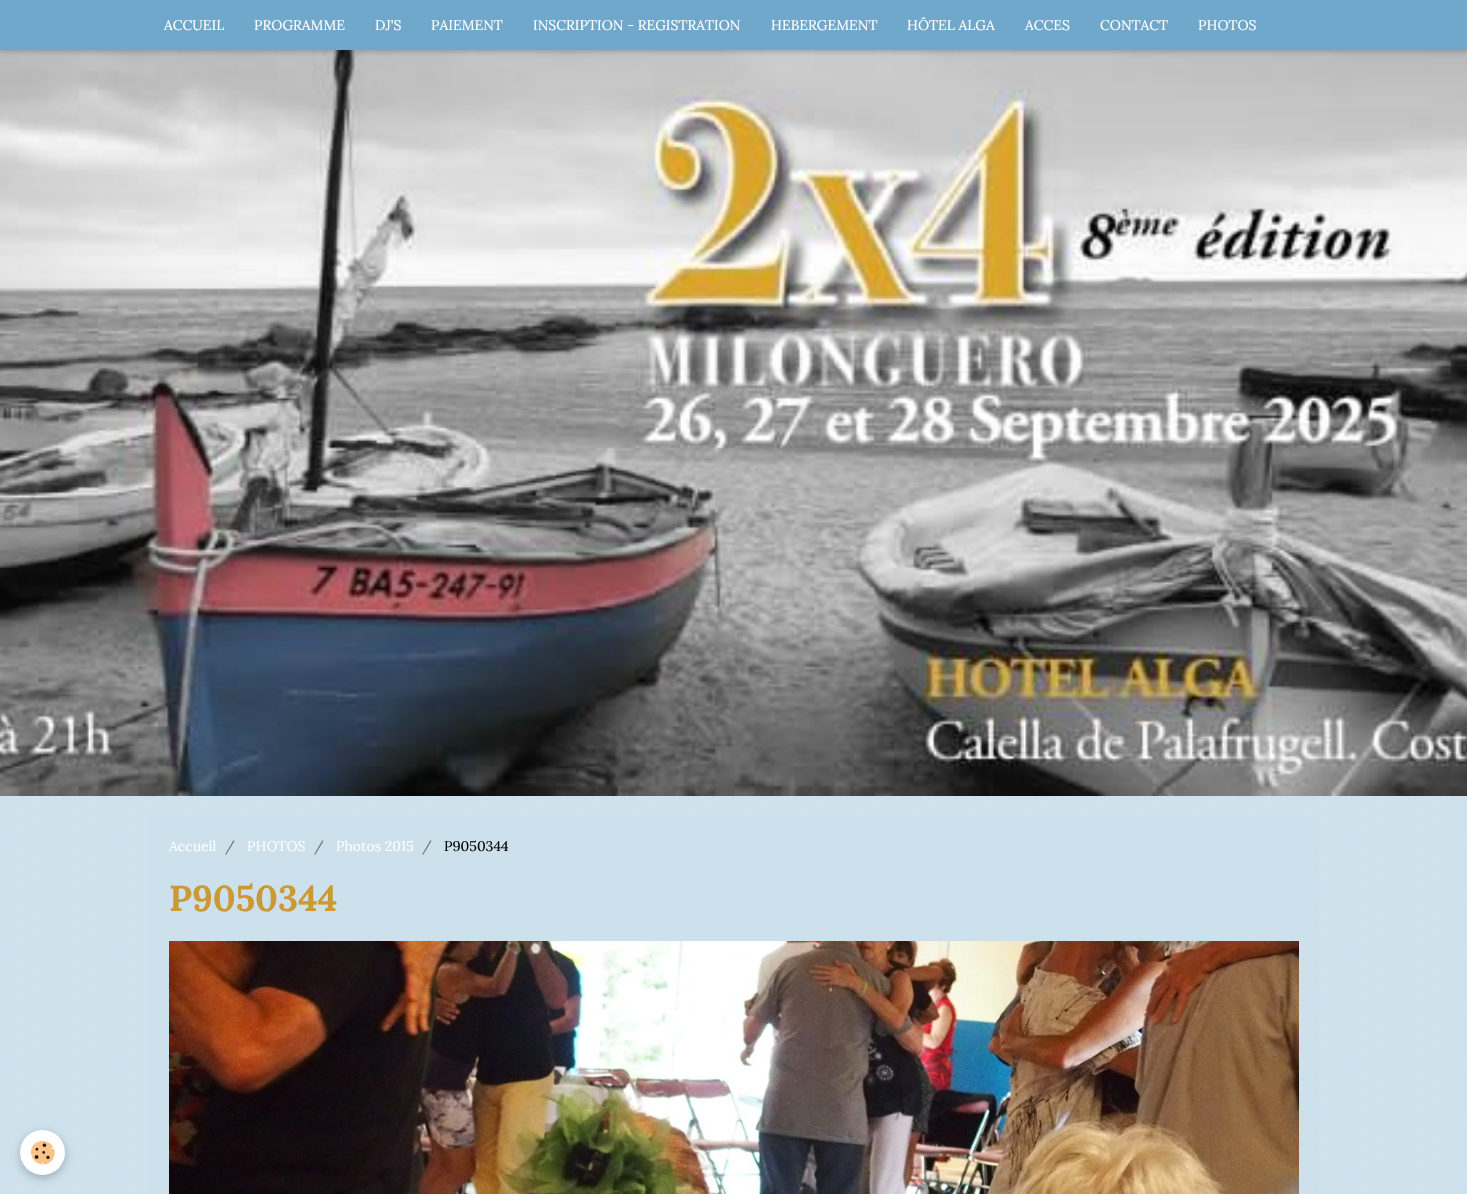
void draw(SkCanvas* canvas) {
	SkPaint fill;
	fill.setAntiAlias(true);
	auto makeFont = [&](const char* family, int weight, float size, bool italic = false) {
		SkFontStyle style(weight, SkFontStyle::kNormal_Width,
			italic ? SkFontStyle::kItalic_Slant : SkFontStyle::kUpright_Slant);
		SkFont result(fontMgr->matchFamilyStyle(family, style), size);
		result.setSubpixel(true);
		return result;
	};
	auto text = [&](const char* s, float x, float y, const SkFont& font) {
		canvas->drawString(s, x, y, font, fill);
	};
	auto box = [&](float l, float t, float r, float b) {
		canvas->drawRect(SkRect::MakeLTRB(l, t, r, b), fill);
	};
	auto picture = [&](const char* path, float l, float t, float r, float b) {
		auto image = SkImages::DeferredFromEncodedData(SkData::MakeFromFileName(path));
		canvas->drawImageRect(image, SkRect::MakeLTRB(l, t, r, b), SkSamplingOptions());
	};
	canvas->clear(0xFFCCE1EC);
	picture("image0.png", 0, 796, 1467, 1194);
	picture("image1.png", 0, 50, 1467, 796);
	fill.setColor(0x33000000);
	fill.setMaskFilter(SkMaskFilter::MakeBlur(kNormal_SkBlurStyle, 2.5f));
	canvas->drawRect(SkRect::MakeLTRB(0, 2, 1467, 52), fill);
	fill.setMaskFilter(nullptr);
	fill.setColor(0xFF6FA8CA);
	box(0, 0, 1467, 50);
	fill.setColor(0xFFCCE1EC);
	box(149, 816, 1319, 1194);
	picture("image2.png", 169, 941, 1299, 1194);
	fill.setColor(0x3D000000);
	fill.setMaskFilter(SkMaskFilter::MakeBlur(kNormal_SkBlurStyle, 5));
	canvas->drawRoundRect(SkRect::MakeLTRB(20, 1133, 65, 1178), 22.5f, 22.5f, fill);
	fill.setMaskFilter(nullptr);
	fill.setColor(0xFFFFFFFF);
	canvas->drawCircle(42.5f, 1152.5f, 22.5f, fill);
	picture("image3.png", 30, 1140, 55, 1165);
	auto font1 = makeFont("Lora", 400, 14);
	text("ACCUEIL", 164, 30, font1);
	text("PROGRAMME", 254, 30, font1);
	text("DJ'S", 375, 30, font1);
	text("PAIEMENT", 431, 30, font1);
	text("INSCRIPTION - REGISTRATION", 533, 30, font1);
	text("HEBERGEMENT", 771, 30, font1);
	text("HÔTEL ALGA", 907, 30, font1);
	text("ACCES", 1025, 30, font1);
	text("CONTACT", 1100, 30, font1);
	text("PHOTOS", 1198, 30, font1);
	text("Accueil", 169, 851, font1);
	fill.setColor(0xFF797366);
	text("/", 225, 851, font1);
	fill.setColor(0xFFFFFFFF);
	text("PHOTOS", 247, 851, font1);
	fill.setColor(0xFF797366);
	text("/", 314, 851, font1);
	fill.setColor(0xFFFFFFFF);
	text("Photos 2015", 336, 851, font1);
	fill.setColor(0xFF797366);
	text("/", 422, 851, font1);
	fill.setColor(0xFF000000);
	text("P9050344", 444, 851, font1);
	auto font2 = makeFont("Lora", 700, 36);
	fill.setColor(0xFFCC9933);
	text("P9050344", 169, 911, font2);
}
